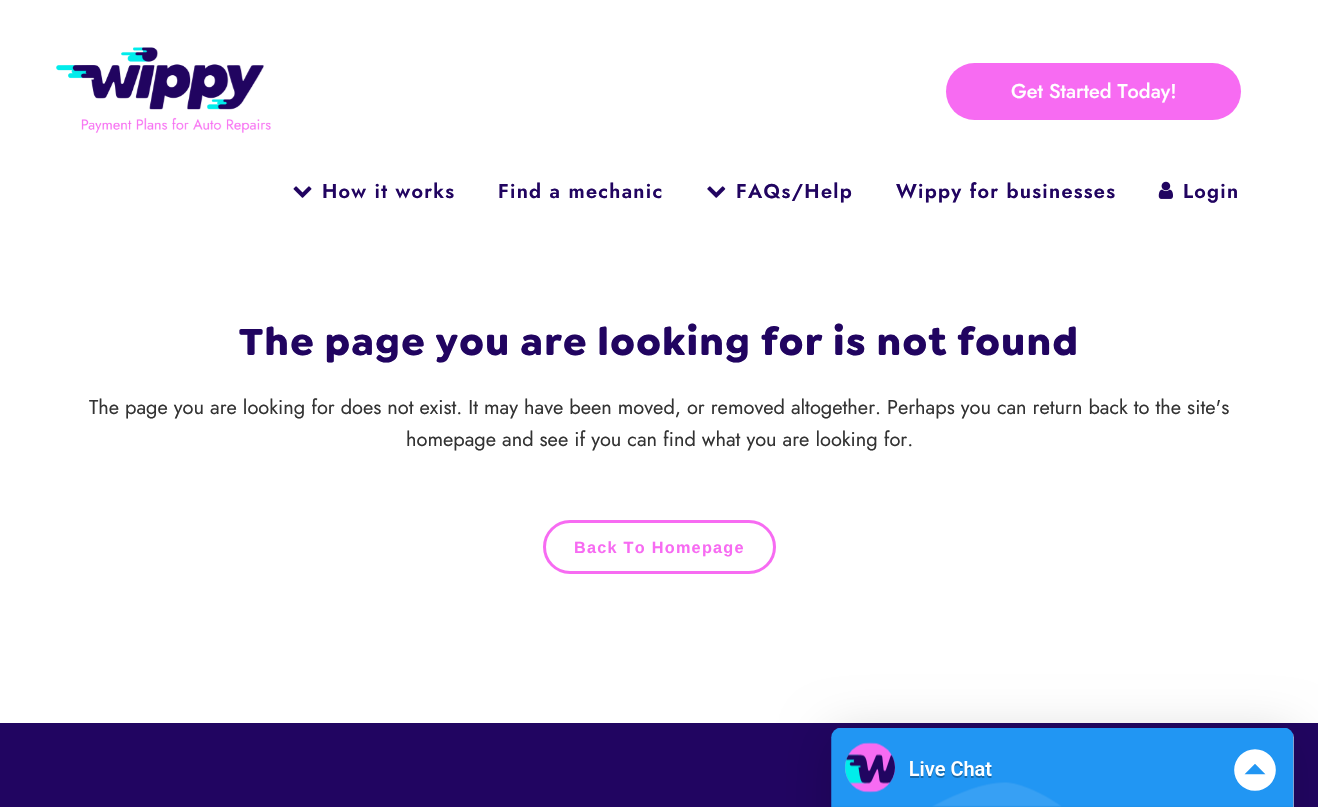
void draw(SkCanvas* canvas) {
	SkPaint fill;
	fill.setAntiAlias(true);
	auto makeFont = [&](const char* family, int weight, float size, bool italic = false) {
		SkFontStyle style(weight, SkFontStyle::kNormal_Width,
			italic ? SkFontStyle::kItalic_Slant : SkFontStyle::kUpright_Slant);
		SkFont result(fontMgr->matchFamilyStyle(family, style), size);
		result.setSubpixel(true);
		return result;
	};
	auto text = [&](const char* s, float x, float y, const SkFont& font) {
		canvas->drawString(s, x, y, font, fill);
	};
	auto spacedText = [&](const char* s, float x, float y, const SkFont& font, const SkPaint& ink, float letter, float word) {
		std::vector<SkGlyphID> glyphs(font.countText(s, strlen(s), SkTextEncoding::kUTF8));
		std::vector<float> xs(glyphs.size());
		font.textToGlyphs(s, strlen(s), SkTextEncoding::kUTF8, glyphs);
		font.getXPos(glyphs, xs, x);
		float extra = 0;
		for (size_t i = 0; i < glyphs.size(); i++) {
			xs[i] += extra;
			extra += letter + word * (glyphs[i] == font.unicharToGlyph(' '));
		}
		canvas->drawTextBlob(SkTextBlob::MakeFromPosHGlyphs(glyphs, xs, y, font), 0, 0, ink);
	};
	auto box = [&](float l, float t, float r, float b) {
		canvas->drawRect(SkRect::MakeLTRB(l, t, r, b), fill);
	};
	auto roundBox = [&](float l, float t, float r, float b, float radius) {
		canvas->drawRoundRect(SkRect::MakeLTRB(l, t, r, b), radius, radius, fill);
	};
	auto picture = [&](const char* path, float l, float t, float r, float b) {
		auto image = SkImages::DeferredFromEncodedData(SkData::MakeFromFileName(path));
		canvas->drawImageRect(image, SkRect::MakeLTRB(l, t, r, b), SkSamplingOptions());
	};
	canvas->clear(0xFFFFFFFF);
	picture("image0.png", 56, 47, 271, 133);
	fill.setColor(0xFFF76BF2);
	roundBox(946, 63, 1241, 120, 28.5f);
	picture("image1.png", 293, 186, 312, 198);
	picture("image2.png", 707, 186, 726, 198);
	picture("image3.png", 1158, 181, 1173, 199);
	fill.setStyle(SkPaint::kStroke_Style);
	fill.setStrokeWidth(3);
	canvas->drawRoundRect(SkRect::MakeLTRB(544.5f, 521.5f, 774.5f, 572.5f), 25.5f, 25.5f, fill);
	fill.setStyle(SkPaint::kFill_Style);
	fill.setColor(0xFF210561);
	box(0, 723, 1318, 807);
	fill.setColor(0x29000000);
	fill.setMaskFilter(SkMaskFilter::MakeBlur(kNormal_SkBlurStyle, 25));
	canvas->drawRoundRect(SkRect::MakeLTRB(831, 734, 1294, 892), 10, 10, fill);
	fill.setMaskFilter(nullptr);
	picture("image4.png", 831, 728, 1294, 807);
	auto font1 = makeFont("Jost", 500, 20);
	fill.setColor(0xFFFFFFFF);
	text("Get Started Today!", 1011, 98, font1);
	auto font2 = makeFont("Jost", 600, 20);
	fill.setColor(0xFF210460);
	spacedText("How it works", 322, 198, font2, fill, 1.25f, 0);
	spacedText("Find a mechanic", 498, 198, font2, fill, 1.25f, 0);
	spacedText("FAQs/Help", 736, 198, font2, fill, 1.25f, 0);
	spacedText("Wippy for businesses", 896, 198, font2, fill, 1.25f, 0);
	spacedText("Login", 1183, 198, font2, fill, 1.25f, 0);
	auto font3 = makeFont("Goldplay", 700, 40);
	spacedText("The page you are looking for is not found", 239, 355, font3, fill, 1.25f, 0);
	auto font4 = makeFont("Jost", 400, 20);
	fill.setColor(0xFF333333);
	text("The page you are looking for does not exist. It may have been moved, or removed altogether. Perhaps you can return back to the site's", 89, 414, font4);
	text("homepage and see if you can find what you are looking for.", 406, 446, font4);
	auto font5 = makeFont("Liberation Sans", 700, 16.25f);
	fill.setColor(0xFFF76BF2);
	spacedText("Back To Homepage", 574, 553, font5, fill, 1.25f, 0);
}
